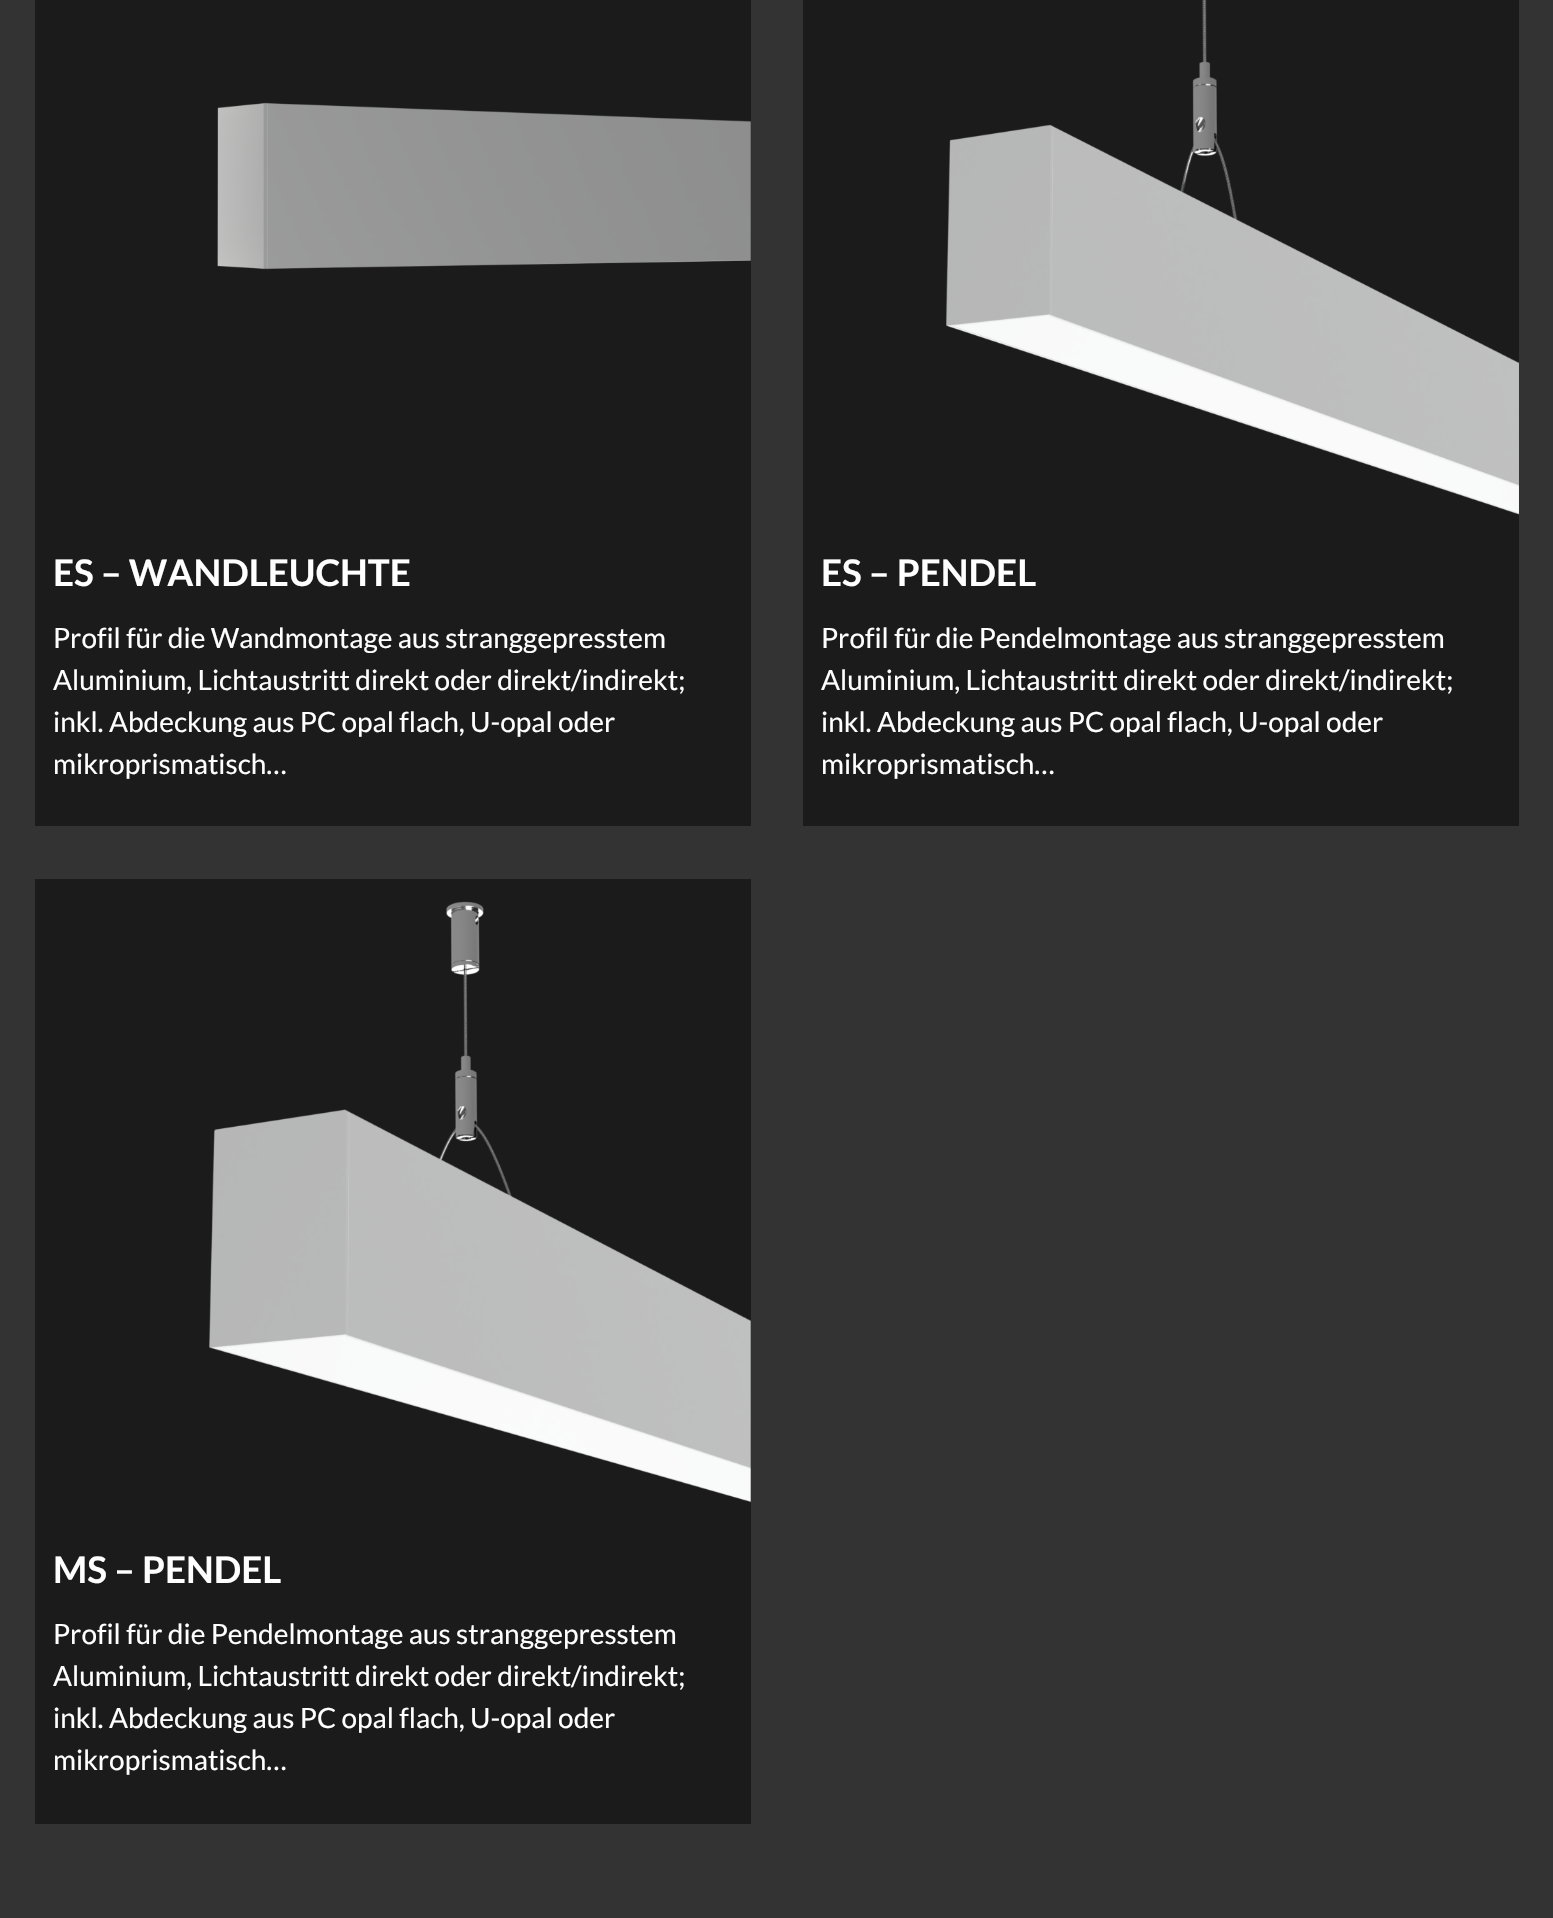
void draw(SkCanvas* canvas) {
	SkPaint fill;
	fill.setAntiAlias(true);
	auto makeFont = [&](const char* family, int weight, float size, bool italic = false) {
		SkFontStyle style(weight, SkFontStyle::kNormal_Width,
			italic ? SkFontStyle::kItalic_Slant : SkFontStyle::kUpright_Slant);
		SkFont result(fontMgr->matchFamilyStyle(family, style), size);
		result.setSubpixel(true);
		return result;
	};
	auto text = [&](const char* s, float x, float y, const SkFont& font) {
		canvas->drawString(s, x, y, font, fill);
	};
	auto box = [&](float l, float t, float r, float b) {
		canvas->drawRect(SkRect::MakeLTRB(l, t, r, b), fill);
	};
	auto picture = [&](const char* path, float l, float t, float r, float b) {
		auto image = SkImages::DeferredFromEncodedData(SkData::MakeFromFileName(path));
		canvas->drawImageRect(image, SkRect::MakeLTRB(l, t, r, b), SkSamplingOptions());
	};
	canvas->clear(0xFF333333);
	fill.setColor(0xFF1B1B1B);
	box(35, 0, 751, 826);
	picture("image0.png", 217, 102, 751, 270);
	box(803, 0, 1519, 826);
	picture("image1.png", 946, 0, 1519, 515);
	box(35, 879, 751, 1824);
	picture("image2.png", 209, 901, 751, 1503);
	auto font1 = makeFont("Lato", 700, 36.75f);
	fill.setColor(0xFFFFFFFF);
	text("ES – WANDLEUCHTE", 53, 586, font1);
	auto font2 = makeFont("Lato", 400, 28);
	text("Profil für die Wandmontage aus stranggepresstem", 53, 648, font2);
	text("Aluminium, Lichtaustritt direkt oder direkt/indirekt;", 53, 690, font2);
	text("inkl. Abdeckung aus PC opal flach, U-opal oder", 53, 732, font2);
	text("mikroprismatisch…", 53, 774, font2);
	text("ES – PENDEL", 821, 586, font1);
	text("Profil für die Pendelmontage aus stranggepresstem", 821, 648, font2);
	text("Aluminium, Lichtaustritt direkt oder direkt/indirekt;", 821, 690, font2);
	text("inkl. Abdeckung aus PC opal flach, U-opal oder", 821, 732, font2);
	text("mikroprismatisch…", 821, 774, font2);
	text("MS – PENDEL", 53, 1583, font1);
	text("Profil für die Pendelmontage aus stranggepresstem", 53, 1644, font2);
	text("Aluminium, Lichtaustritt direkt oder direkt/indirekt;", 53, 1686, font2);
	text("inkl. Abdeckung aus PC opal flach, U-opal oder", 53, 1728, font2);
	text("mikroprismatisch…", 53, 1770, font2);
}
